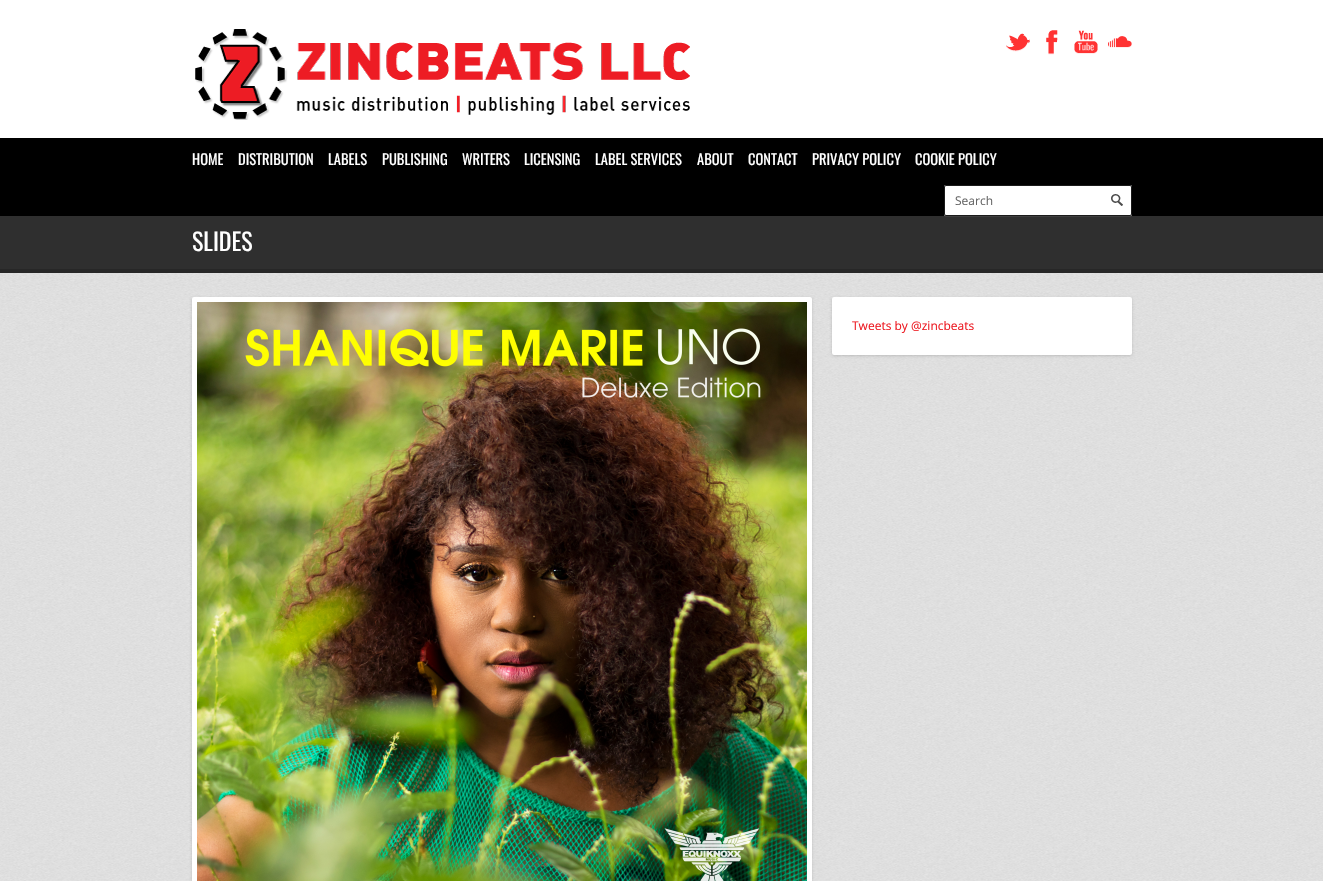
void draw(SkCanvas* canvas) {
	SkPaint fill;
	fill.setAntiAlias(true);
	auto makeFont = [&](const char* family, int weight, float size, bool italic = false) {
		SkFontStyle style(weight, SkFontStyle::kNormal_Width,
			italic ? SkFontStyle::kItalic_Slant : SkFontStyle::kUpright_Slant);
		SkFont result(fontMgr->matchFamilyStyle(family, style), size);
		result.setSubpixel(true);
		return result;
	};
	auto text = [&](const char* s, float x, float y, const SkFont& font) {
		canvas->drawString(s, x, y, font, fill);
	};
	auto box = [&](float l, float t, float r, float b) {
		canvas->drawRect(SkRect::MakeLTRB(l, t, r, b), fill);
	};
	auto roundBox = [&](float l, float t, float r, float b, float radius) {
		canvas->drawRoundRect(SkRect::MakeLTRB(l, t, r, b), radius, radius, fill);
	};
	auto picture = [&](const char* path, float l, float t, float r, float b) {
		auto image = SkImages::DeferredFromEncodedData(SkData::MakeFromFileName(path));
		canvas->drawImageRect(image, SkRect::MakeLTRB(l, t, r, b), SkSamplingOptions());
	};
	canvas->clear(0xFFFFFFFF);
	picture("image0.png", 0, 273, 1323, 881);
	fill.setColor(0xFF000000);
	box(0, 138, 1323, 216);
	picture("image1.png", 195, 29, 690, 120);
	picture("image2.png", 1006, 33, 1030, 52);
	picture("image3.png", 1046, 30, 1058, 55);
	picture("image4.png", 1074, 30, 1098, 54);
	picture("image5.png", 1108, 36, 1132, 48);
	fill.setColor(0xFF2F2F2F);
	box(0, 216, 1323, 269);
	fill.setColor(0xFF3F3F3F);
	canvas->drawPath(SkPathBuilder().moveTo(944, 214).lineTo(944, 215).cubicTo(944, 216, 945, 217, 946, 217).lineTo(1130, 217).cubicTo(1131, 217, 1132, 216, 1132, 215).lineTo(1132, 214).cubicTo(1132, 215, 1131, 216, 1130, 216).lineTo(946, 216).cubicTo(945, 216, 944, 215, 944, 214).close().detach(), fill);
	fill.setColor(0xFFFFFFFF);
	roundBox(944, 185, 1132, 216, 2);
	picture("image6.png", 1111, 194, 1123, 206);
	fill.setStyle(SkPaint::kStroke_Style);
	fill.setStrokeWidth(1);
	fill.setColor(0xFF1B1B1B);
	canvas->drawRoundRect(SkRect::MakeLTRB(944.5f, 185.5f, 1131.5f, 215.5f), 1.5f, 1.5f, fill);
	fill.setStyle(SkPaint::kFill_Style);
	fill.setColor(0xFF272727);
	box(0, 269, 1323, 273);
	fill.setColor(0x26000000);
	fill.setMaskFilter(SkMaskFilter::MakeBlur(kNormal_SkBlurStyle, 1.5f));
	canvas->drawRoundRect(SkRect::MakeLTRB(192, 298, 812, 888), 2, 2, fill);
	fill.setMaskFilter(nullptr);
	fill.setColor(0xFFFFFFFF);
	roundBox(192, 297, 812, 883, 2);
	picture("image7.png", 197, 302, 807, 881);
	fill.setColor(0x26000000);
	fill.setMaskFilter(SkMaskFilter::MakeBlur(kNormal_SkBlurStyle, 1.5f));
	canvas->drawRoundRect(SkRect::MakeLTRB(832, 298, 1132, 356), 2, 2, fill);
	fill.setMaskFilter(nullptr);
	fill.setColor(0xFFFFFFFF);
	roundBox(832, 297, 1132, 355, 2);
	auto font1 = makeFont("Oswald", 400, 14.5f);
	text("HOME", 192, 165, font1);
	text("DISTRIBUTION", 238, 165, font1);
	text("LABELS", 328, 165, font1);
	text("PUBLISHING", 382, 165, font1);
	text("WRITERS", 462, 165, font1);
	text("LICENSING", 524, 165, font1);
	text("LABEL SERVICES", 595, 165, font1);
	text("ABOUT", 697, 165, font1);
	text("CONTACT", 748, 165, font1);
	text("PRIVACY POLICY", 812, 165, font1);
	text("COOKIE POLICY", 915, 165, font1);
	auto font2 = makeFont("Open Sans", 400, 12);
	fill.setColor(0xFF666666);
	text("Search", 955, 205, font2);
	auto font3 = makeFont("Oswald", 400, 24);
	fill.setColor(0xFFFFFFFF);
	text("SLIDES", 192, 251, font3);
	fill.setColor(0xFFED1C24);
	text("Tweets by @zincbeats", 852, 330, font2);
}
